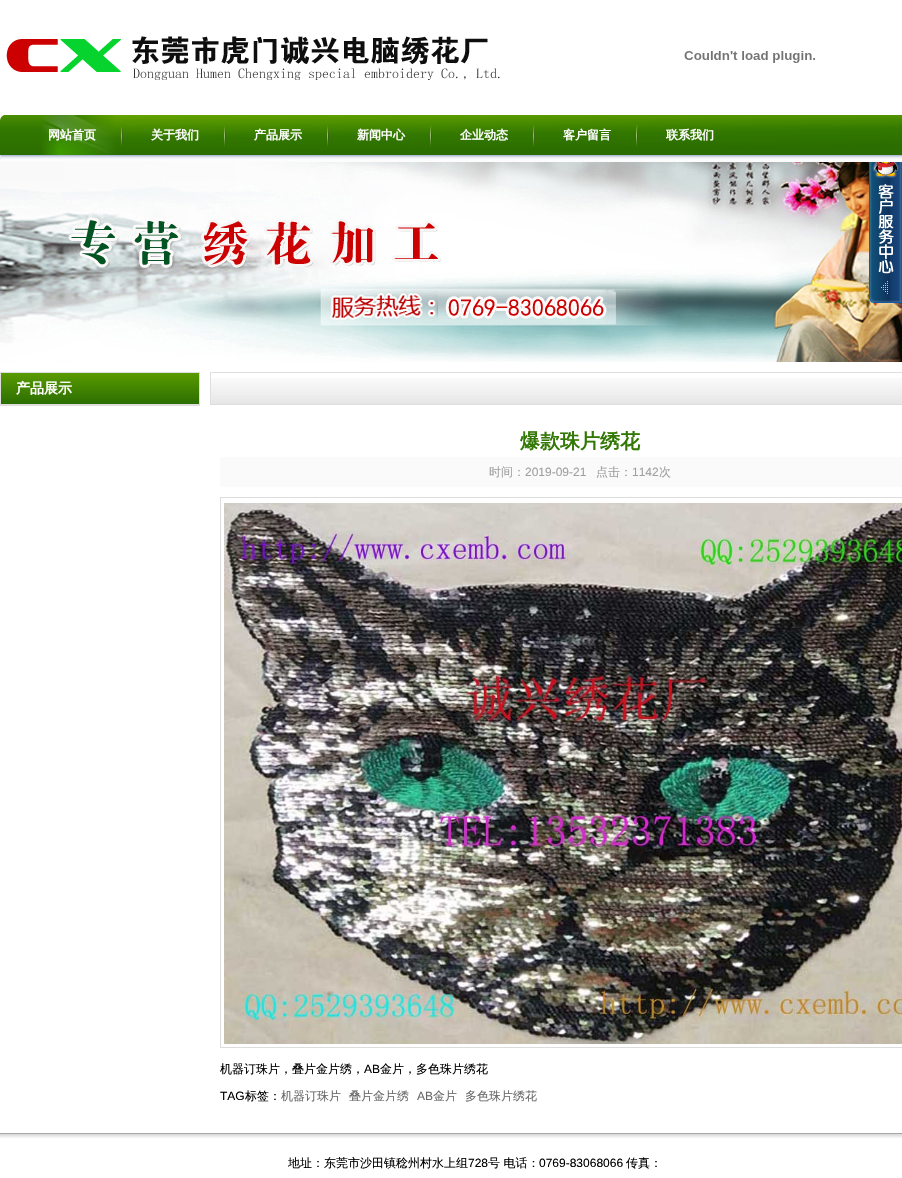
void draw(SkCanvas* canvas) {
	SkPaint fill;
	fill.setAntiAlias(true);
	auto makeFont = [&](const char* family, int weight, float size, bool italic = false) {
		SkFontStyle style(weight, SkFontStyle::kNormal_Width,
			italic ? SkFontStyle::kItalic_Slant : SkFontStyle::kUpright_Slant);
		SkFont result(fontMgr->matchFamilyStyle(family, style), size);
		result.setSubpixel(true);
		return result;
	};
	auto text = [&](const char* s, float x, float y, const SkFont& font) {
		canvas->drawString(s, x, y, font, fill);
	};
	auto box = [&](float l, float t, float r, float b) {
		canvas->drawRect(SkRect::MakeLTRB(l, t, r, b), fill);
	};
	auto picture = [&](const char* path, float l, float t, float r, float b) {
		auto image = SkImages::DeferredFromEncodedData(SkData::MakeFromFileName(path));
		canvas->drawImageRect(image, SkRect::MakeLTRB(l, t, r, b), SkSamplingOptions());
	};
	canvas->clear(0xFFFFFFFF);
	picture("image0.png", 6, 36, 500, 80);
	picture("image1.png", 684, 51, 815, 63);
	picture("image2.png", 0, 115, 902, 162);
	picture("image3.png", 121, 125, 123, 146);
	picture("image3.png", 224, 125, 226, 146);
	picture("image3.png", 327, 125, 329, 146);
	picture("image3.png", 430, 125, 432, 146);
	picture("image3.png", 533, 125, 535, 146);
	picture("image3.png", 636, 125, 638, 146);
	picture("image4.png", 0, 162, 902, 362);
	picture("image5.png", 1, 373, 199, 404);
	fill.setStyle(SkPaint::kStroke_Style);
	fill.setStrokeWidth(1);
	fill.setColor(0xFFDEDEDE);
	canvas->drawRect(SkRect::MakeLTRB(0.5f, 372.5f, 199.5f, 404.5f), fill);
	fill.setStyle(SkPaint::kFill_Style);
	box(0, 405, 200, 406);
	picture("image6.png", 211, 378, 902, 404);
	fill.setStyle(SkPaint::kStroke_Style);
	canvas->drawRect(SkRect::MakeLTRB(210.5f, 372.5f, 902.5f, 404.5f), fill);
	fill.setStyle(SkPaint::kFill_Style);
	fill.setColor(0xFFFAFAFA);
	box(220, 457, 902, 487);
	fill.setStyle(SkPaint::kStroke_Style);
	fill.setColor(0xFFDDDCDC);
	canvas->drawRect(SkRect::MakeLTRB(220.5f, 497.5f, 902.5f, 1047.5f), fill);
	picture("image7.png", 224, 503, 902, 1044);
	picture("image8.png", 0, 1133, 902, 1138);
	picture("image9.png", 869, 162, 902, 303);
	auto font1 = makeFont("WenQuanYi Zen Hei", 700, 12);
	fill.setStyle(SkPaint::kFill_Style);
	fill.setColor(0xFFFFFFFF);
	text("网站首页", 48, 139, font1);
	text("关于我们", 151, 139, font1);
	text("产品展示", 254, 139, font1);
	text("新闻中心", 357, 139, font1);
	text("企业动态", 460, 139, font1);
	text("客户留言", 563, 139, font1);
	text("联系我们", 666, 139, font1);
	auto font2 = makeFont("WenQuanYi Zen Hei", 700, 14);
	text("产品展示", 16, 393, font2);
	auto font3 = makeFont("WenQuanYi Zen Hei", 700, 20);
	fill.setColor(0xFF327804);
	text("爆款珠片绣花", 520, 448, font3);
	auto font4 = makeFont("WenQuanYi Zen Hei", 500, 12);
	fill.setColor(0xFFA0A0A0);
	text("时间：", 489, 476, font4);
	auto font5 = makeFont("Liberation Sans", 400, 12);
	text("2019-09-21", 525, 476, font5);
	text("点击：", 596, 476, font4);
	text("1142", 632, 476, font5);
	text("次", 659, 476, font4);
	fill.setColor(0xFF000000);
	text("机器订珠片，叠片金片绣，", 220, 1073, font4);
	text("AB", 364, 1073, font5);
	text("金片，多色珠片绣花", 380, 1073, font4);
	text("TAG", 220, 1100, font5);
	text("标签：", 245, 1100, font4);
	fill.setColor(0xFF696969);
	text("机器订珠片", 281, 1100, font4);
	text("叠片金片绣", 349, 1100, font4);
	text("AB", 417, 1100, font5);
	text("金片", 433, 1100, font4);
	text("多色珠片绣花", 465, 1100, font4);
	fill.setColor(0xFF000000);
	text("地址：东莞市沙田镇稔州村水上组", 288, 1167, font4);
	text("728", 468, 1167, font5);
	text("号 电话：", 488, 1167, font4);
	text("0769-83068066", 539, 1167, font5);
	text("传真：", 626, 1167, font4);
}
